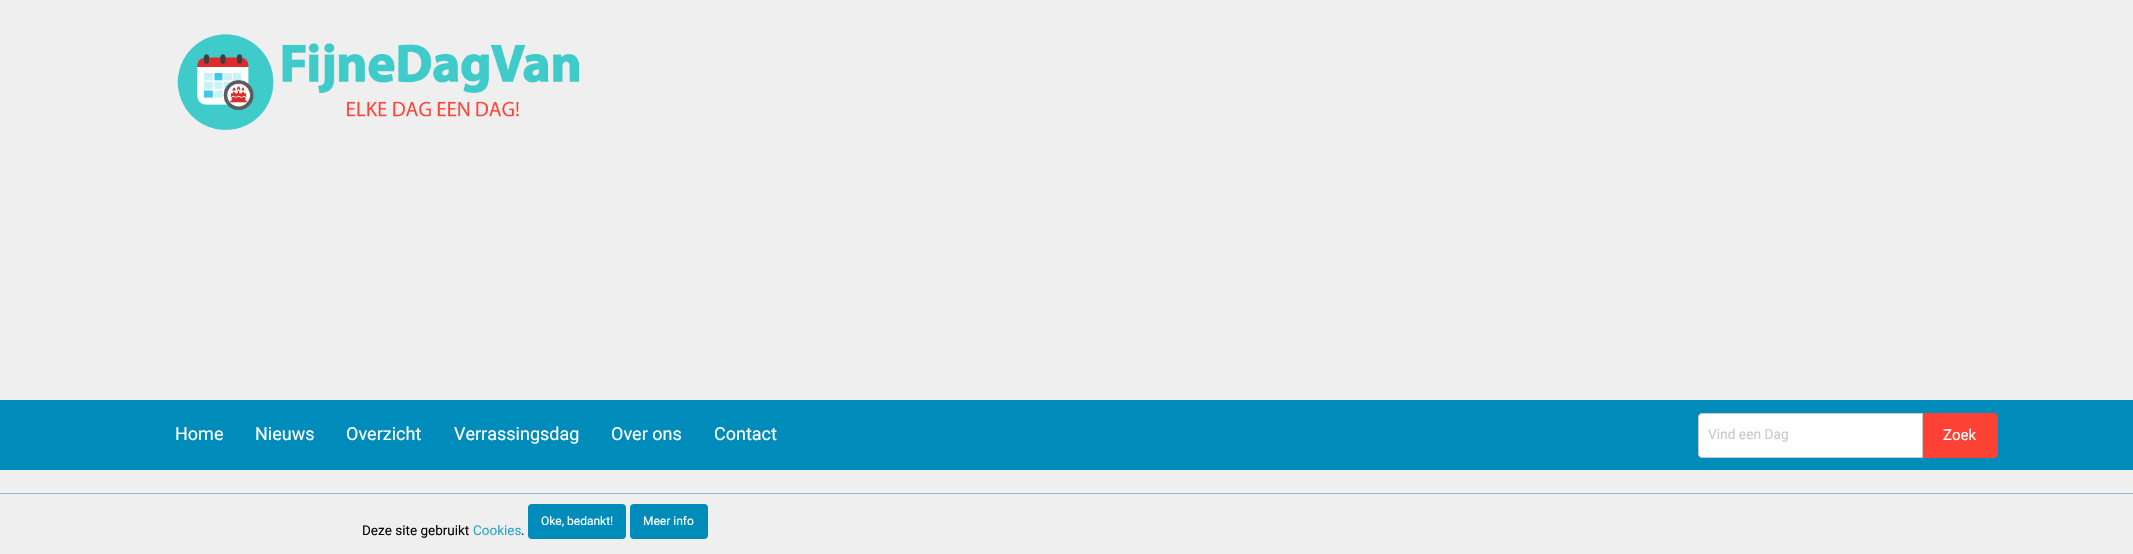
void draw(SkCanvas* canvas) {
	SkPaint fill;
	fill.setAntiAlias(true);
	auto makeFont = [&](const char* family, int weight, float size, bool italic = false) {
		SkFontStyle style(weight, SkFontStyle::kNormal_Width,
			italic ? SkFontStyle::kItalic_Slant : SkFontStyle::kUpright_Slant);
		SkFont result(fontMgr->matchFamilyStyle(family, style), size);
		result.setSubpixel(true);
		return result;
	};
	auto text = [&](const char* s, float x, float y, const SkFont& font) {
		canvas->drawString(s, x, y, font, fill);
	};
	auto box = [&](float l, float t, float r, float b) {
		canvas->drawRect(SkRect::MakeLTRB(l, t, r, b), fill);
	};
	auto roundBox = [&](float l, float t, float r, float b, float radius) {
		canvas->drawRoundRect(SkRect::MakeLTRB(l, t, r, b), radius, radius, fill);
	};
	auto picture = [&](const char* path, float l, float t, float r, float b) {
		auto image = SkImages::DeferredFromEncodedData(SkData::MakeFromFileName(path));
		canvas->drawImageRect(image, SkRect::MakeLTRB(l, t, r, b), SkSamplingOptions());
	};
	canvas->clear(0xFFEFEFEF);
	picture("image0.png", 177, 34, 580, 130);
	fill.setColor(0xFF008CBA);
	box(0, 400, 2133, 470);
	fill.setColor(0xFFFEFEFE);
	canvas->drawPath(SkPathBuilder().moveTo(1702, 413.5f).lineTo(1922.5f, 413.5f).lineTo(1922.5f, 457.5f).lineTo(1702, 457.5f).cubicTo(1700, 457.5f, 1698.5f, 456, 1698.5f, 454).lineTo(1698.5f, 417).cubicTo(1698.5f, 415, 1700, 413.5f, 1702, 413.5f).close().detach(), fill);
	fill.setStyle(SkPaint::kStroke_Style);
	fill.setStrokeWidth(1);
	fill.setColor(0xFFCACACA);
	canvas->drawPath(SkPathBuilder().moveTo(1702, 413.5f).lineTo(1922.5f, 413.5f).lineTo(1922.5f, 457.5f).lineTo(1702, 457.5f).cubicTo(1700, 457.5f, 1698.5f, 456, 1698.5f, 454).lineTo(1698.5f, 417).cubicTo(1698.5f, 415, 1700, 413.5f, 1702, 413.5f).close().detach(), fill);
	fill.setStyle(SkPaint::kFill_Style);
	fill.setColor(0xFFFD4135);
	canvas->drawPath(SkPathBuilder().moveTo(1923, 413).lineTo(1994, 413).cubicTo(1996, 413, 1998, 415, 1998, 417).lineTo(1998, 454).cubicTo(1998, 456, 1996, 458, 1994, 458).lineTo(1923, 458).close().detach(), fill);
	fill.setColor(0xFF9EB4CB);
	box(0, 493, 2133, 494);
	fill.setColor(0xFF008CBA);
	roundBox(528, 504, 626, 539, 4);
	roundBox(630, 504, 708, 539, 4);
	auto font1 = makeFont("Roboto", 400, 18);
	fill.setColor(0xFFFFFFFF);
	text("Home", 175, 440, font1);
	text("Nieuws", 255, 440, font1);
	text("Overzicht", 346, 440, font1);
	text("Verrassingsdag", 454, 440, font1);
	text("Over ons", 611, 440, font1);
	text("Contact", 714, 440, font1);
	auto font2 = makeFont("Roboto", 400, 13.75f);
	fill.setColor(0xFFCACACA);
	text("Vind een Dag", 1708, 439, font2);
	auto font3 = makeFont("Roboto", 400, 15);
	fill.setColor(0xFFFFFFFF);
	text("Zoek", 1943, 440, font3);
	auto font4 = makeFont("Roboto", 400, 12);
	text("Oke, bedankt!", 541, 525, font4);
	text("Meer info", 643, 525, font4);
	auto font5 = makeFont("Roboto", 400, 13.5f);
	fill.setColor(0xFF0A0A0A);
	text("Deze site gebruikt", 362, 535, font5);
	fill.setColor(0xFF2BA6CB);
	text("Cookies", 473, 535, font5);
	fill.setColor(0xFF0A0A0A);
	text(".", 521, 535, font5);
}
